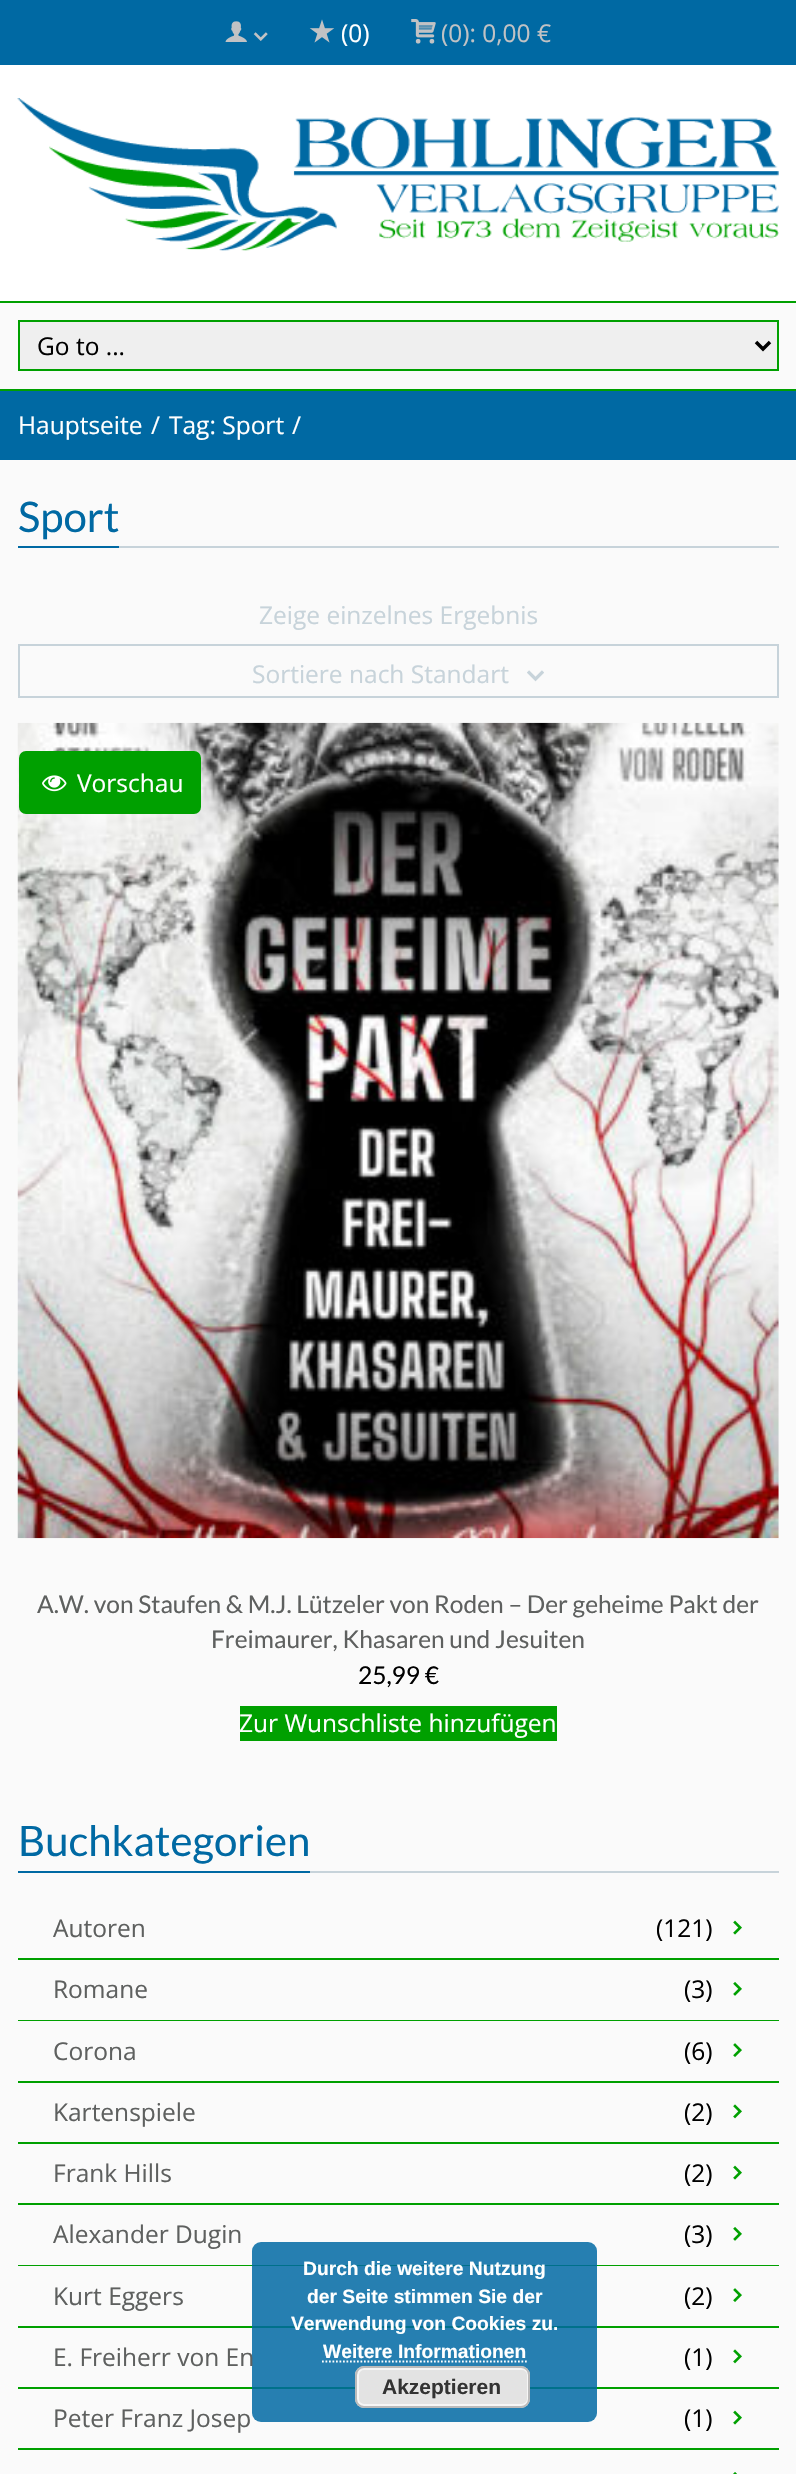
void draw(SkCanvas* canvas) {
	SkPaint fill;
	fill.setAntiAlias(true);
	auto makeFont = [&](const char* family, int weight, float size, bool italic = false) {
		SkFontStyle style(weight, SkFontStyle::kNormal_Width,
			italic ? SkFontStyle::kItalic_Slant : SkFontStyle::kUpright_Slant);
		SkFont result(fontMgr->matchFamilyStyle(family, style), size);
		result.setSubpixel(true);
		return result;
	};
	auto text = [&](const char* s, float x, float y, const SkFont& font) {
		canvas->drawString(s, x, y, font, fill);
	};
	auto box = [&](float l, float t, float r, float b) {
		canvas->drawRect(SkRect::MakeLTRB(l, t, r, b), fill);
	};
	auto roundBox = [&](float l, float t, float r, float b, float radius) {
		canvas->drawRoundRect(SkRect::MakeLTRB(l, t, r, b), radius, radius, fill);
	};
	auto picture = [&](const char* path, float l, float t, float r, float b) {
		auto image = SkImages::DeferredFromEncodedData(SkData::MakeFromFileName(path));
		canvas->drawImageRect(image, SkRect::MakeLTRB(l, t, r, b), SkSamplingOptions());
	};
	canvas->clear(0xFFFAFAFA);
	fill.setColor(0xFF0069A3);
	box(0, 0, 796, 65);
	picture("image0.png", 225, 21, 247, 42);
	picture("image1.png", 253, 32, 268, 41);
	picture("image2.png", 309, 19, 335, 43);
	picture("image3.png", 411, 19, 436, 44);
	fill.setColor(0xFFFFFFFF);
	box(0, 65, 796, 301);
	picture("image4.png", 17, 98, 779, 251);
	fill.setColor(0xFF00A000);
	box(0, 301, 796, 303);
	box(0, 389, 796, 391);
	fill.setColor(0xFFEFEFEF);
	canvas->drawRect(SkRect::MakeLTRB(19, 321, 778, 370), fill);
	fill.setStyle(SkPaint::kStroke_Style);
	fill.setStrokeWidth(2);
	fill.setColor(0xFF00A000);
	canvas->drawRect(SkRect::MakeLTRB(19, 321, 778, 370), fill);
	fill.setStrokeWidth(3.5f);
	fill.setColor(0xFF000000);
	canvas->drawPath(SkPathBuilder().moveTo(756, 342).lineTo(763, 349).lineTo(770, 342).detach(), fill);
	fill.setStyle(SkPaint::kFill_Style);
	fill.setColor(0xFF0069A3);
	box(0, 391, 796, 460);
	fill.setColor(0xFFC7D3DA);
	box(119, 546, 779, 548);
	fill.setColor(0xFF0069A3);
	box(18, 546, 119, 548);
	fill.setStyle(SkPaint::kStroke_Style);
	fill.setStrokeWidth(2);
	fill.setColor(0xFFC7D3DA);
	canvas->drawRect(SkRect::MakeLTRB(19, 645, 778, 697), fill);
	picture("image5.png", 527, 670, 544, 682);
	picture("image6.png", 17, 722, 779, 1539);
	fill.setStyle(SkPaint::kFill_Style);
	fill.setColor(0xFF00A000);
	roundBox(19, 751, 201, 814, 7);
	picture("image7.png", 42, 775, 67, 792);
	box(240, 1706, 557, 1741);
	fill.setColor(0xFFC7D3DA);
	box(310, 1871, 779, 1873);
	fill.setColor(0xFF0069A3);
	box(18, 1871, 310, 1873);
	fill.setColor(0xFF00A000);
	box(18, 1958, 779, 1960);
	picture("image8.png", 733, 1920, 742, 1935);
	box(18, 2020, 779, 2021);
	picture("image9.png", 733, 1982, 742, 1996);
	box(18, 2081, 779, 2083);
	picture("image10.png", 733, 2043, 742, 2057);
	box(18, 2142, 779, 2144);
	picture("image11.png", 733, 2104, 742, 2119);
	box(18, 2203, 779, 2205);
	picture("image8.png", 733, 2165, 742, 2180);
	box(18, 2265, 779, 2266);
	picture("image9.png", 733, 2227, 742, 2241);
	box(18, 2326, 779, 2328);
	picture("image10.png", 733, 2288, 742, 2302);
	box(18, 2387, 779, 2389);
	picture("image11.png", 733, 2349, 742, 2364);
	box(18, 2448, 779, 2450);
	picture("image8.png", 733, 2410, 742, 2425);
	picture("image12.png", 733, 2472, 737, 2474);
	fill.setColor(0xD90069A3);
	roundBox(252, 2242, 597, 2422, 9);
	fill.setStyle(SkPaint::kStroke_Style);
	fill.setStrokeWidth(1.8f);
	fill.setColor(0xFFFFFFFF);
	fill.setPathEffect(SkDashPathEffect::Make({{1.75f, 1.75f}}, 0));
	canvas->drawPath(SkPathBuilder().moveTo(322, 2361.5f).lineTo(527, 2361.5f).detach(), fill);
	fill.setPathEffect(nullptr);
	fill.setStyle(SkPaint::kFill_Style);
	fill.setColor(0xFFE3E3E3);
	roundBox(355, 2366, 530, 2408, 9);
	fill.setStyle(SkPaint::kStroke_Style);
	fill.setStrokeWidth(2);
	fill.setColor(0xFFF6F6F6);
	canvas->drawRoundRect(SkRect::MakeLTRB(358, 2369, 528, 2405), 6, 6, fill);
	fill.setColor(0xFFBBBBBB);
	canvas->drawRoundRect(SkRect::MakeLTRB(356, 2367, 529, 2407), 8, 8, fill);
	auto font1 = makeFont("Open Sans", 400, 24.5f);
	fill.setStyle(SkPaint::kFill_Style);
	fill.setColor(0xFFFFFFFF);
	text("(0)", 341, 42, font1);
	fill.setColor(0xFFC1C2C4);
	text("(0): 0,00 €", 441, 42, font1);
	fill.setColor(0xFF000000);
	text("Go to ...", 37, 355, font1);
	fill.setColor(0xFFFFFFFF);
	text("Hauptseite", 18, 434, font1);
	text("/", 151, 434, font1);
	text("Tag: Sport", 169, 434, font1);
	text("/", 292, 434, font1);
	auto font2 = makeFont("Lato", 400, 42);
	fill.setColor(0xFF0069A3);
	text("Sport", 18, 532, font2);
	fill.setColor(0xFFC7D3DA);
	text("Zeige einzelnes Ergebnis", 259, 624, font1);
	text("Sortiere nach Standart", 252, 683, font1);
	fill.setColor(0xFFFFFFFF);
	text("Vorschau", 77, 792, font1);
	auto font3 = makeFont("Lato", 400, 24.5f);
	fill.setColor(0xFF5E605F);
	text("A.W. von Staufen & M.J. Lützeler von Roden – Der geheime Pakt der", 37, 1613, font3);
	text("Freimaurer, Khasaren und Jesuiten", 211, 1648, font3);
	fill.setColor(0xFF000000);
	text("25,99 €", 358, 1684, font3);
	fill.setColor(0xFFFFFFFF);
	text("Zur Wunschliste hinzufügen", 239, 1732, font1);
	fill.setColor(0xFF0069A3);
	text("Buchkategorien", 18, 1856, font2);
	fill.setColor(0xFF5E605F);
	text("Autoren", 53, 1937, font1);
	fill.setColor(0xFF000000);
	text("(121)", 656, 1937, font1);
	fill.setColor(0xFF5E605F);
	text("Romane", 53, 1998, font1);
	fill.setColor(0xFF000000);
	text("(3)", 684, 1998, font1);
	fill.setColor(0xFF5E605F);
	text("Corona", 53, 2060, font1);
	fill.setColor(0xFF000000);
	text("(6)", 684, 2060, font1);
	fill.setColor(0xFF5E605F);
	text("Kartenspiele", 53, 2121, font1);
	fill.setColor(0xFF000000);
	text("(2)", 684, 2121, font1);
	fill.setColor(0xFF5E605F);
	text("Frank Hills", 53, 2182, font1);
	fill.setColor(0xFF000000);
	text("(2)", 684, 2182, font1);
	fill.setColor(0xFF5E605F);
	text("Alexander Dugin", 53, 2243, font1);
	fill.setColor(0xFF000000);
	text("(3)", 684, 2243, font1);
	fill.setColor(0xFF5E605F);
	text("Kurt Eggers", 53, 2305, font1);
	fill.setColor(0xFF000000);
	text("(2)", 684, 2305, font1);
	fill.setColor(0xFF5E605F);
	text("E. Freiherr von En", 53, 2366, font1);
	fill.setColor(0xFF000000);
	text("(1)", 684, 2366, font1);
	fill.setColor(0xFF5E605F);
	text("Peter Franz Josep", 53, 2427, font1);
	fill.setColor(0xFF000000);
	text("(1)", 684, 2427, font1);
	auto font4 = makeFont("Liberation Sans", 700, 19.25f);
	fill.setColor(0xFFFFFFFF);
	text("Durch die weitere Nutzung", 303, 2275, font4);
	text("der Seite stimmen Sie der", 307, 2303, font4);
	text("Verwendung von Cookies zu.", 291, 2330, font4);
	text("Weitere Informationen", 323, 2358, font4);
	auto font5 = makeFont("Liberation Sans", 700, 21);
	fill.setColor(0xFF333333);
	text("Akzeptieren", 382, 2394, font5);
}
